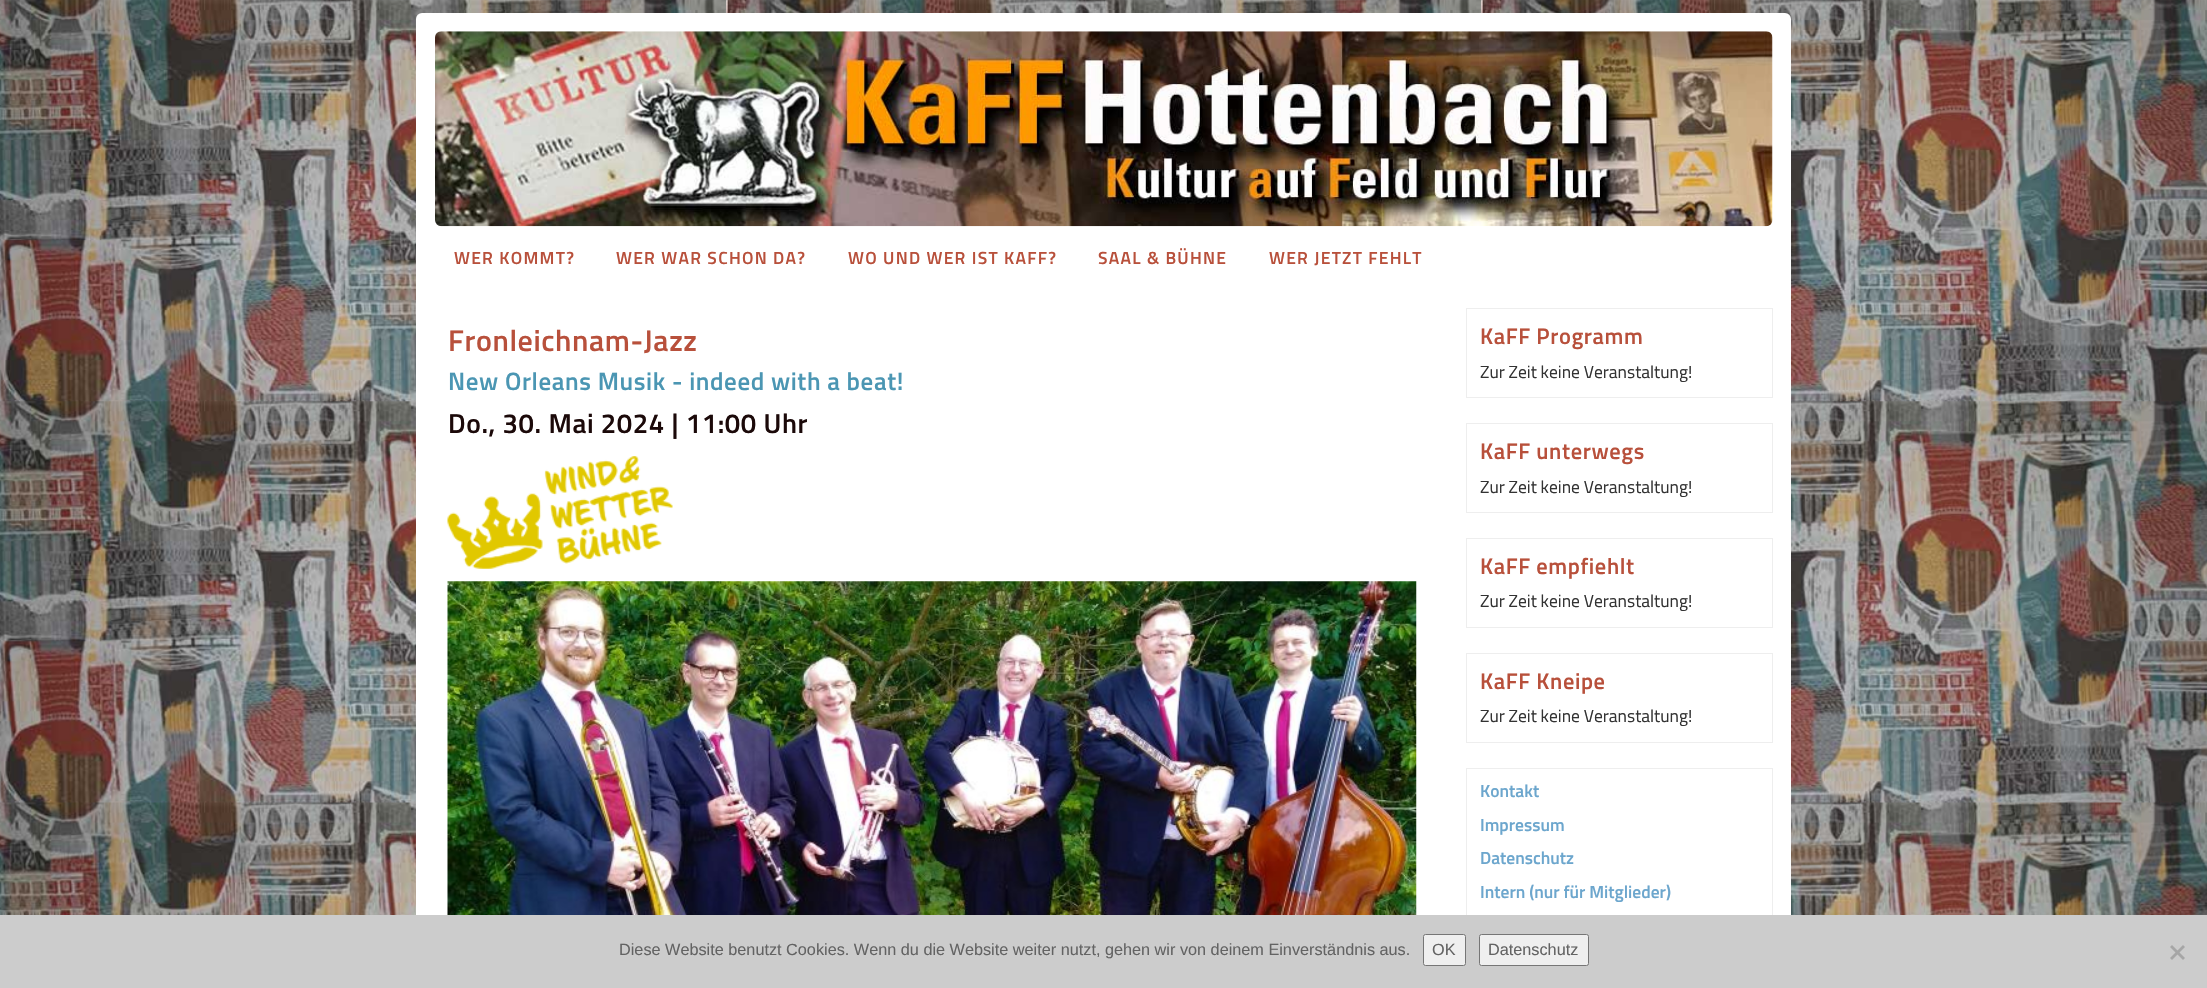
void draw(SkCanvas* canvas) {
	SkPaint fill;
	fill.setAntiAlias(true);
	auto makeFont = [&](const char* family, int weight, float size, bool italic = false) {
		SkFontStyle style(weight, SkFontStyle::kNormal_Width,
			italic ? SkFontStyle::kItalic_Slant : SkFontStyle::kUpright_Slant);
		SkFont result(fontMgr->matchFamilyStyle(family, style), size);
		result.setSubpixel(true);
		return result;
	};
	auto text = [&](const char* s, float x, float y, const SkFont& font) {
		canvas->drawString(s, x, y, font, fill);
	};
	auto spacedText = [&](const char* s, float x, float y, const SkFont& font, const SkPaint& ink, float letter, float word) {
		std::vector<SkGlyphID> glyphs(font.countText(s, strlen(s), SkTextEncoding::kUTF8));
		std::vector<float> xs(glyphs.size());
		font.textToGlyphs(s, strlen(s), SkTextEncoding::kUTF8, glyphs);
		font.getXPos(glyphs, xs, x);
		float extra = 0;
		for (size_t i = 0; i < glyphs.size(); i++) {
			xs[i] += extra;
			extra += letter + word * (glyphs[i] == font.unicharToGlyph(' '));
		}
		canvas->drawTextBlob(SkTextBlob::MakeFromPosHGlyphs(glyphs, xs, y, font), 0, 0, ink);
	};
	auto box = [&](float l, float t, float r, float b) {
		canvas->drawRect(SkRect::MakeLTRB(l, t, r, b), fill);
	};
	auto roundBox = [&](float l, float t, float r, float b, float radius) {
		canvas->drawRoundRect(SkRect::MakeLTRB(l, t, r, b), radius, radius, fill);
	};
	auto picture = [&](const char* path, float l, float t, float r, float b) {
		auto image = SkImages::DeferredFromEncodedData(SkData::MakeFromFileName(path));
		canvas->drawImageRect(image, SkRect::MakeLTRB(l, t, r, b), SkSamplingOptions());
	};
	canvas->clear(0xFFFFFFFF);
	picture("image0.png", 0, 0, 2207, 915);
	fill.setColor(0xFFFFFFFF);
	roundBox(416, 13, 1791, 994, 6);
	picture("image1.png", 435, 31, 1773, 227);
	picture("image2.png", 447, 456, 673, 569);
	picture("image3.png", 447, 581, 1417, 915);
	fill.setStyle(SkPaint::kStroke_Style);
	fill.setStrokeWidth(1);
	fill.setColor(0xFFEEEEEE);
	canvas->drawRect(SkRect::MakeLTRB(1466.5f, 308.5f, 1772.5f, 397.5f), fill);
	canvas->drawRect(SkRect::MakeLTRB(1466.5f, 423.5f, 1772.5f, 512.5f), fill);
	canvas->drawRect(SkRect::MakeLTRB(1466.5f, 538.5f, 1772.5f, 627.5f), fill);
	canvas->drawRect(SkRect::MakeLTRB(1466.5f, 653.5f, 1772.5f, 742.5f), fill);
	canvas->drawRect(SkRect::MakeLTRB(1466.5f, 768.5f, 1772.5f, 962.5f), fill);
	fill.setStyle(SkPaint::kFill_Style);
	fill.setColor(0xFFCCCCCC);
	box(0, 915, 2207, 988);
	fill.setColor(0xFFEFEFEF);
	canvas->drawRoundRect(SkRect::MakeLTRB(1423.5f, 934.5f, 1465.5f, 965.5f), 2, 2, fill);
	fill.setStyle(SkPaint::kStroke_Style);
	fill.setColor(0xFF767676);
	canvas->drawRoundRect(SkRect::MakeLTRB(1423.5f, 934.5f, 1465.5f, 965.5f), 2, 2, fill);
	fill.setStyle(SkPaint::kFill_Style);
	fill.setColor(0xFFEFEFEF);
	canvas->drawRoundRect(SkRect::MakeLTRB(1479.5f, 934.5f, 1588.5f, 965.5f), 2, 2, fill);
	fill.setStyle(SkPaint::kStroke_Style);
	fill.setColor(0xFF767676);
	canvas->drawRoundRect(SkRect::MakeLTRB(1479.5f, 934.5f, 1588.5f, 965.5f), 2, 2, fill);
	fill.setStyle(SkPaint::kFill_Style);
	fill.setColor(0xFFA6A6A6);
	canvas->drawPath(SkPathBuilder().moveTo(2183, 945).lineTo(2185, 947).lineTo(2172, 960).lineTo(2170, 958).close().detach(), fill);
	canvas->drawPath(SkPathBuilder().moveTo(2170, 947).lineTo(2172, 945).lineTo(2185, 958).lineTo(2183, 960).close().detach(), fill);
	auto font1 = makeFont("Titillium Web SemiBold", 600, 17.5f);
	fill.setColor(0xFFB8503B);
	spacedText("WER KOMMT?", 454, 264, font1, fill, 1.25f, 0);
	spacedText("WER WAR SCHON DA?", 616, 264, font1, fill, 1.25f, 0);
	spacedText("WO UND WER IST KAFF?", 848, 264, font1, fill, 1.25f, 0);
	spacedText("SAAL & BÜHNE", 1098, 264, font1, fill, 1.25f, 0);
	spacedText("WER JETZT FEHLT", 1269, 264, font1, fill, 1.25f, 0);
	auto font2 = makeFont("Titillium Web SemiBold", 600, 30);
	spacedText("Fronleichnam-Jazz", 448, 351, font2, fill, 0.6f, 0);
	auto font3 = makeFont("Titillium Web SemiBold", 600, 25);
	fill.setColor(0xFF4B96B3);
	spacedText("New Orleans Musik - indeed with a beat!", 448, 390, font3, fill, 0.6f, 0);
	auto font4 = makeFont("Titillium Web SemiBold", 600, 27.5f);
	fill.setColor(0xFF1B0909);
	spacedText("Do., 30. Mai 2024 | 11:00 Uhr", 448, 433, font4, fill, 0.6f, 0);
	auto font5 = makeFont("Titillium Web SemiBold", 600, 22.5f);
	fill.setColor(0xFFB8503B);
	spacedText("KaFF Programm", 1480, 344, font5, fill, 0.6f, 0);
	auto font6 = makeFont("Titillium Web", 400, 17.5f);
	fill.setColor(0xFF333333);
	text("Zur Zeit keine Veranstaltung!", 1480, 378, font6);
	fill.setColor(0xFFB8503B);
	spacedText("KaFF unterwegs", 1480, 459, font5, fill, 0.6f, 0);
	fill.setColor(0xFF333333);
	text("Zur Zeit keine Veranstaltung!", 1480, 493, font6);
	fill.setColor(0xFFB8503B);
	spacedText("KaFF empfiehlt", 1480, 574, font5, fill, 0.6f, 0);
	fill.setColor(0xFF333333);
	text("Zur Zeit keine Veranstaltung!", 1480, 607, font6);
	fill.setColor(0xFFB8503B);
	spacedText("KaFF Kneipe", 1480, 689, font5, fill, 0.6f, 0);
	fill.setColor(0xFF333333);
	text("Zur Zeit keine Veranstaltung!", 1480, 722, font6);
	fill.setColor(0xFF6CA6CD);
	text("Kontakt", 1480, 797, font1);
	text("Impressum", 1480, 831, font1);
	text("Datenschutz", 1480, 864, font1);
	text("Intern (nur für Mitglieder)", 1480, 898, font1);
	auto font7 = makeFont("Liberation Sans", 400, 16.25f);
	fill.setColor(0xFF636363);
	text("Diese Website benutzt Cookies. Wenn du die Website weiter nutzt, gehen wir von deinem Einverständnis aus.", 619, 955, font7);
	text("OK", 1432, 955, font7);
	text("Datenschutz", 1488, 955, font7);
}
